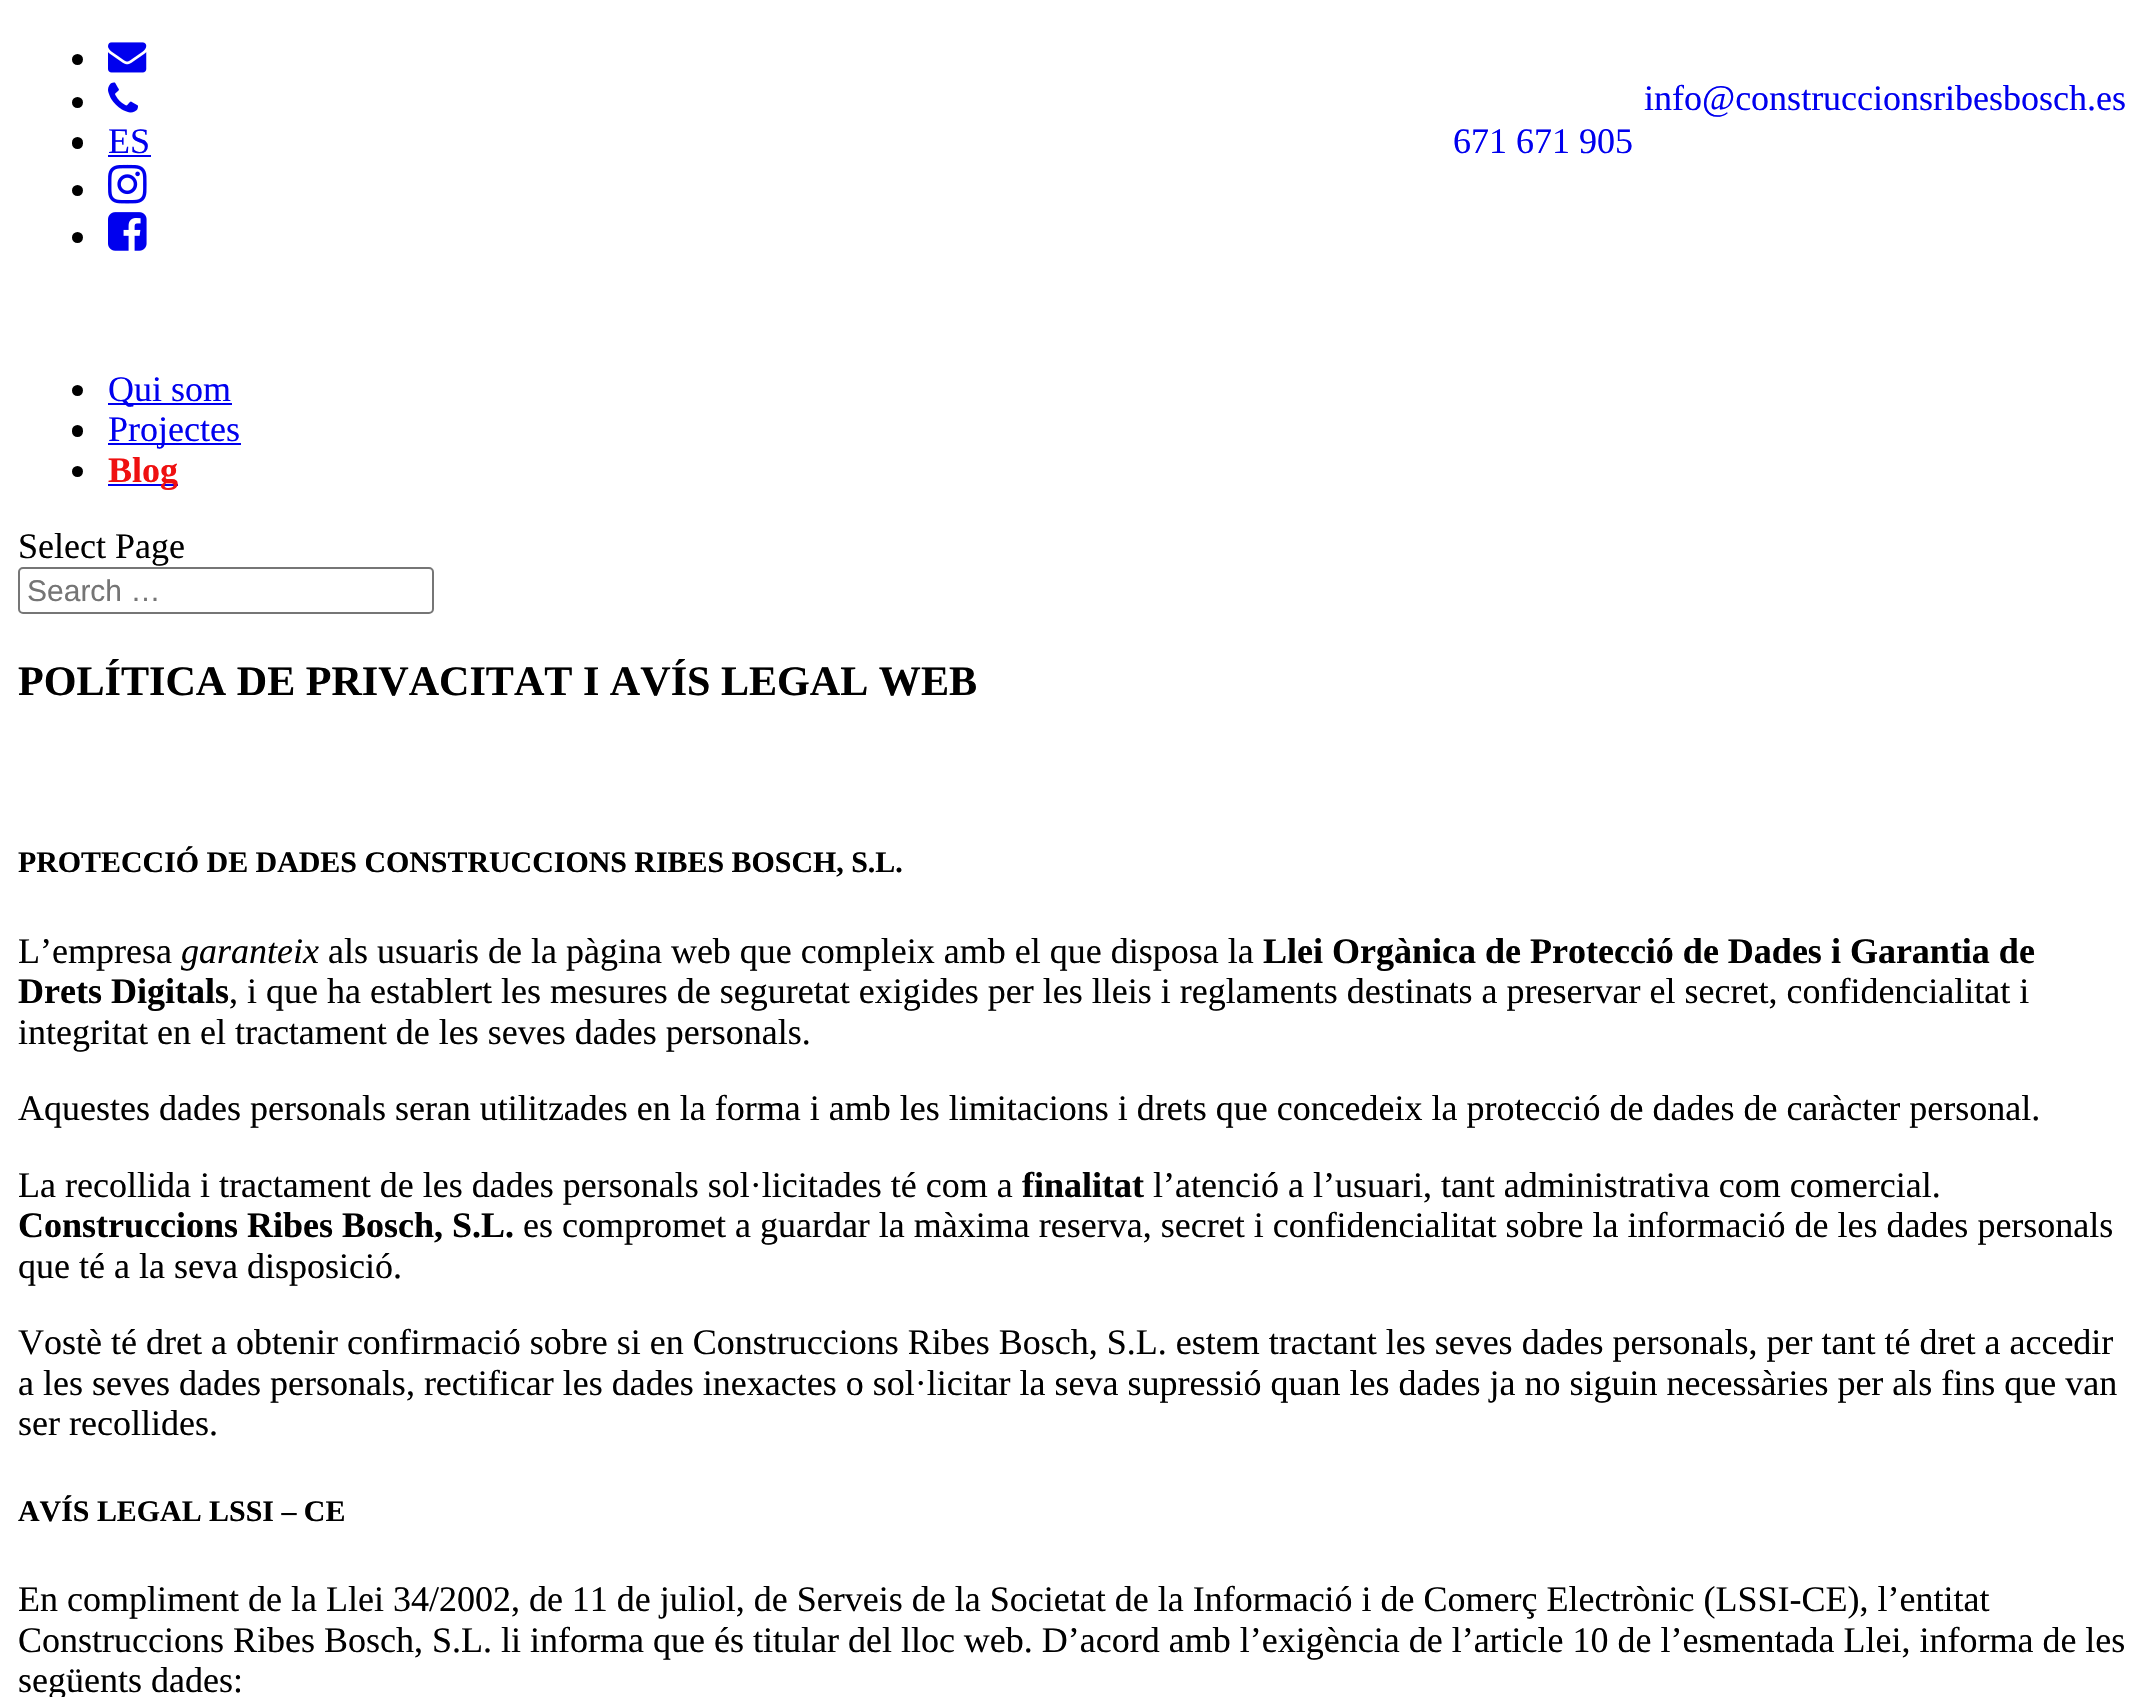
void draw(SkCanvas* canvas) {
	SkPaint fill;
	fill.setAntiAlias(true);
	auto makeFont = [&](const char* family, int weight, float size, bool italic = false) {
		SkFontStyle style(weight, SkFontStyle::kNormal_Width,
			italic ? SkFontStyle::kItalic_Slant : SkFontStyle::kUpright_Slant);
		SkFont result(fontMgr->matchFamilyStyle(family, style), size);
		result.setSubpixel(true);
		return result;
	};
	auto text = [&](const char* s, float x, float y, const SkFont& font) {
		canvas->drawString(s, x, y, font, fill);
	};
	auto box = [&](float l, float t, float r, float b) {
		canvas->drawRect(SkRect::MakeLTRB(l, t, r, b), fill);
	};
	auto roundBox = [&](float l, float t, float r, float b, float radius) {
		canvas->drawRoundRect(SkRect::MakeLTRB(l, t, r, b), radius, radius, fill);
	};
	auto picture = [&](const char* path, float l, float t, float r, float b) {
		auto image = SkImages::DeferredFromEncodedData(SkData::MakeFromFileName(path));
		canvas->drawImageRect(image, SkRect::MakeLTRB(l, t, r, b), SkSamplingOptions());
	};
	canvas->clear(0xFFFFFFFF);
	fill.setColor(0xFF000000);
	canvas->drawCircle(77.5f, 59.5f, 5.5f, fill);
	picture("image0.png", 108, 42, 147, 73);
	roundBox(72, 137, 83, 149, 5.5f);
	fill.setColor(0xFF0000EE);
	box(108, 155, 151, 157);
	fill.setColor(0xFF000000);
	canvas->drawCircle(77.5f, 102.5f, 5.5f, fill);
	picture("image1.png", 108, 82, 138, 113);
	canvas->drawCircle(77.5f, 190.5f, 5.5f, fill);
	picture("image2.png", 108, 164, 147, 204);
	canvas->drawCircle(77.5f, 237.5f, 5.5f, fill);
	picture("image3.png", 108, 212, 147, 251);
	canvas->drawCircle(77.5f, 390.5f, 5.5f, fill);
	fill.setColor(0xFF0000EE);
	box(108, 403, 232, 405);
	fill.setColor(0xFF000000);
	roundBox(72, 425, 83, 437, 5.5f);
	fill.setColor(0xFF0000EE);
	box(108, 443, 241, 445);
	fill.setColor(0xFF000000);
	canvas->drawCircle(77.5f, 471.5f, 5.5f, fill);
	fill.setColor(0xFF0000EE);
	box(108, 484, 178, 486);
	fill.setStyle(SkPaint::kStroke_Style);
	fill.setStrokeWidth(2);
	fill.setColor(0xFF767676);
	canvas->drawRoundRect(SkRect::MakeLTRB(19, 568, 433, 613), 4, 4, fill);
	auto font1 = makeFont("Liberation Serif", 400, 36);
	fill.setStyle(SkPaint::kFill_Style);
	fill.setColor(0xFF0000EE);
	text("info@construccionsribesbosch.es", 1644, 110, font1);
	text("ES", 108, 153, font1);
	text("671 671 905", 1453, 153, font1);
	text("Qui som", 108, 401, font1);
	text("Projectes", 108, 441, font1);
	auto font2 = makeFont("Liberation Serif", 700, 36);
	fill.setColor(0xFFEF1010);
	text("Blog", 108, 482, font2);
	fill.setColor(0xFF000000);
	text("Select Page", 18, 558, font1);
	auto font3 = makeFont("Liberation Sans", 400, 30);
	fill.setColor(0xFF757575);
	text("Search …", 27, 601, font3);
	auto font4 = makeFont("Liberation Serif", 700, 42.1f);
	fill.setColor(0xFF000000);
	text("POLÍTICA DE PRIVACITAT I AVÍS LEGAL WEB", 18, 695, font4);
	auto font5 = makeFont("Liberation Serif", 700, 29.9f);
	text("PROTECCIÓ DE DADES CONSTRUCCIONS RIBES BOSCH, S.L.", 18, 872, font5);
	text("L’empresa", 18, 963, font1);
	auto font6 = makeFont("Liberation Serif", 400, 36, true);
	text("garanteix", 181, 963, font6);
	text("als usuaris de la pàgina web que compleix amb el que disposa la", 328, 963, font1);
	text("Llei Orgànica de Protecció de Dades i Garantia de", 1263, 963, font2);
	text("Drets Digitals", 18, 1003, font2);
	text(", i que ha establert les mesures de seguretat exigides per les lleis i reglaments destinats a preservar el secret, confidencialitat i", 229, 1003, font1);
	text("integritat en el tractament de les seves dades personals.", 18, 1044, font1);
	text("Aquestes dades personals seran utilitzades en la forma i amb les limitacions i drets que concedeix la protecció de dades de caràcter personal.", 18, 1120, font1);
	text("La recollida i tractament de les dades personals sol·licitades té com a", 18, 1197, font1);
	text("finalitat", 1022, 1197, font2);
	text("l’atenció a l’usuari, tant administrativa com comercial.", 1153, 1197, font1);
	text("Construccions Ribes Bosch, S.L.", 18, 1237, font2);
	text("es compromet a guardar la màxima reserva, secret i confidencialitat sobre la informació de les dades personals", 523, 1237, font1);
	text("que té a la seva disposició.", 18, 1278, font1);
	text("Vostè té dret a obtenir confirmació sobre si en Construccions Ribes Bosch, S.L. estem tractant les seves dades personals, per tant té dret a accedir", 18, 1354, font1);
	text("a les seves dades personals, rectificar les dades inexactes o sol·licitar la seva supressió quan les dades ja no siguin necessàries per als fins que van", 18, 1395, font1);
	text("ser recollides.", 18, 1435, font1);
	text("AVÍS LEGAL LSSI – CE", 18, 1521, font5);
	text("En compliment de la Llei 34/2002, de 11 de juliol, de Serveis de la Societat de la Informació i de Comerç Electrònic (LSSI-CE), l’entitat", 18, 1611, font1);
	text("Construccions Ribes Bosch, S.L. li informa que és titular del lloc web. D’acord amb l’exigència de l’article 10 de l’esmentada Llei, informa de les", 18, 1652, font1);
	text("següents dades:", 18, 1692, font1);
}
